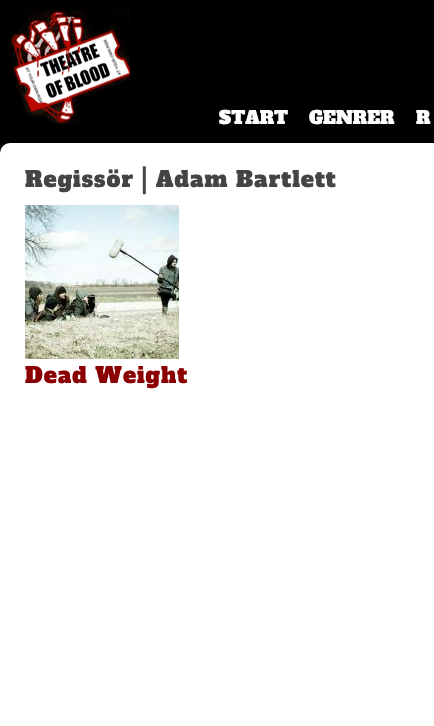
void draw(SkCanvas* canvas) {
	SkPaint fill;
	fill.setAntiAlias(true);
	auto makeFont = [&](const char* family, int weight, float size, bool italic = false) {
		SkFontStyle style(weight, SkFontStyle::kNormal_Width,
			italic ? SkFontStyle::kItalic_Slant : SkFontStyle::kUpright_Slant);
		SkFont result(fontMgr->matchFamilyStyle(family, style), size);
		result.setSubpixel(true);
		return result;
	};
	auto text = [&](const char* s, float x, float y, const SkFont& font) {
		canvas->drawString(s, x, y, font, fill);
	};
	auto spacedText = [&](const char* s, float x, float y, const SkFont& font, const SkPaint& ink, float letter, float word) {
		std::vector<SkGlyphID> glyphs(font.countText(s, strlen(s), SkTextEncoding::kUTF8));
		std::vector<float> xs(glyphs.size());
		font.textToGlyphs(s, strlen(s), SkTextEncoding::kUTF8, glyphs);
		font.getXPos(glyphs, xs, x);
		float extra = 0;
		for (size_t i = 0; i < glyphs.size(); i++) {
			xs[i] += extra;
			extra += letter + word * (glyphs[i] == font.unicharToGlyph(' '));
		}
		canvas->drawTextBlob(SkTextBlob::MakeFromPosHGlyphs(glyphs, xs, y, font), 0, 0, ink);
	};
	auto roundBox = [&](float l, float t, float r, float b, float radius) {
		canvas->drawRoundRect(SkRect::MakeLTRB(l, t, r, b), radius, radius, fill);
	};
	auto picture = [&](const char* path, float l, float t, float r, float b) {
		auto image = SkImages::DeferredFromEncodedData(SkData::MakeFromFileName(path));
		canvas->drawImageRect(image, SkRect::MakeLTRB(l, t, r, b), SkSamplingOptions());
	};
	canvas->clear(0xFF000000);
	picture("image0.png", 9, 10, 130, 125);
	fill.setColor(0xFFFFFFFF);
	roundBox(0, 143, 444, 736, 10);
	picture("image1.png", 25, 205, 179, 359);
	auto font1 = makeFont("Alfa Slab One", 400, 18);
	text("START", 219, 124, font1);
	text("GENRER", 309, 124, font1);
	text("R", 416, 124, font1);
	auto font2 = makeFont("Alfa Slab One", 400, 22);
	fill.setColor(0xFF444444);
	spacedText("Regissör | Adam Bartlett", 25, 187, font2, fill, 1, 0);
	fill.setColor(0xFF8B0000);
	spacedText("Dead Weight", 25, 383, font2, fill, 1, 0);
}
